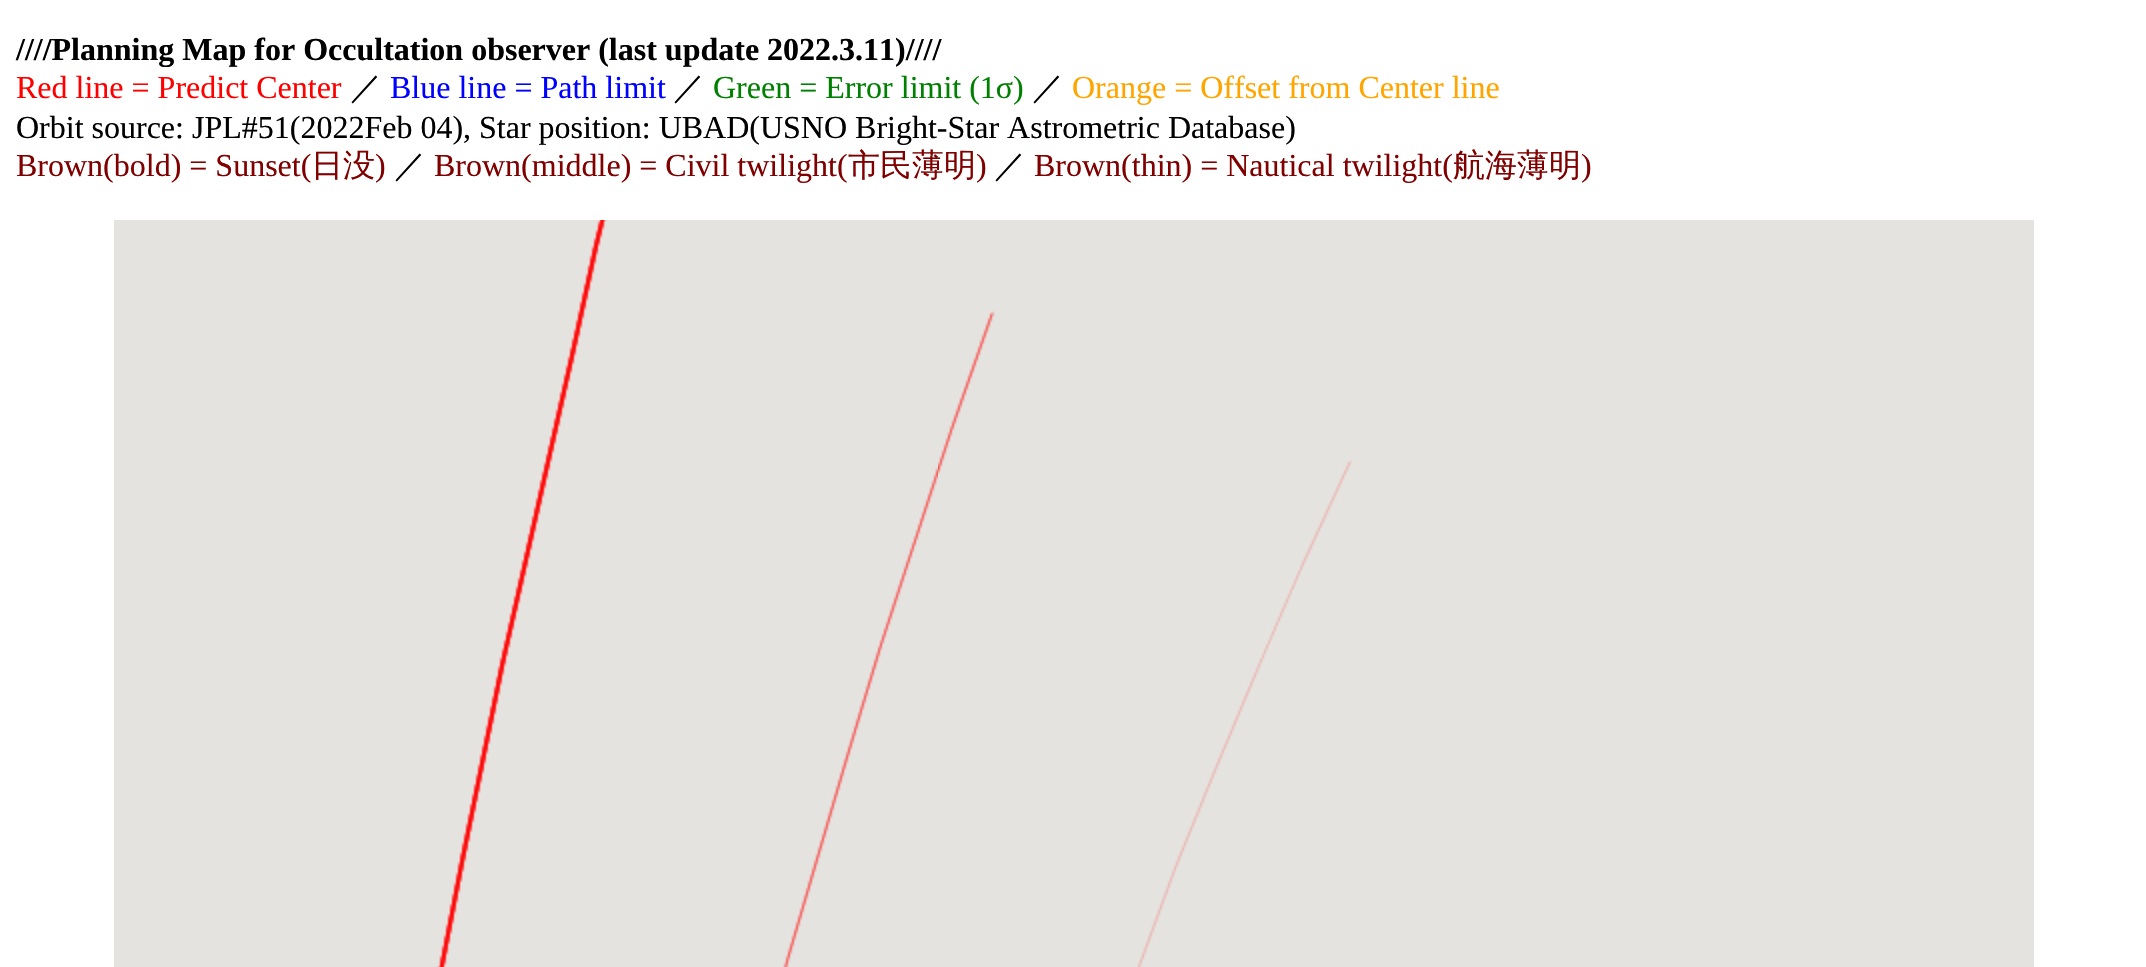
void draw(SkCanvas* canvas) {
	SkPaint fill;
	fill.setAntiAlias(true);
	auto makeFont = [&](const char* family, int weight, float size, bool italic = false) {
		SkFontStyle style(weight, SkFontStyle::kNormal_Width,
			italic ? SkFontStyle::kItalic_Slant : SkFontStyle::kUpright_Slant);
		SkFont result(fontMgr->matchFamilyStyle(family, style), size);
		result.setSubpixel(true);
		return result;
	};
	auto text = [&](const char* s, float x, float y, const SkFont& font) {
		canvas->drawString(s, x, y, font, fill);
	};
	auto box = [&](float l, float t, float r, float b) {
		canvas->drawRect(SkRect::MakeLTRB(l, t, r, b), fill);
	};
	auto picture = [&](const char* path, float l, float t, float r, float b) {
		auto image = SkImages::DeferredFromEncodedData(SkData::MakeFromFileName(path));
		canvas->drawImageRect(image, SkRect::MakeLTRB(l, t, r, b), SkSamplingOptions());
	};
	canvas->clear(0xFFFFFFFF);
	fill.setColor(0xFFE5E3DF);
	box(114, 220, 2034, 967);
	picture("image0.png", 503, 220, 938, 644);
	picture("image1.png", 938, 311, 1352, 644);
	picture("image2.png", 437, 644, 883, 967);
	picture("image3.png", 1137, 644, 1270, 967);
	auto font1 = makeFont("Liberation Serif", 700, 32);
	fill.setColor(0xFF000000);
	text("////Planning Map for Occultation observer (last update 2022.3.11)////", 16, 60, font1);
	auto font2 = makeFont("Liberation Serif", 400, 32);
	fill.setColor(0xFFFF0000);
	text("Red line = Predict Center", 16, 98, font2);
	auto font3 = makeFont("WenQuanYi Zen Hei", 500, 32);
	fill.setColor(0xFF000000);
	text("／", 350, 98, font3);
	fill.setColor(0xFF0000FF);
	text("Blue line = Path limit", 390, 98, font2);
	fill.setColor(0xFF000000);
	text("／", 673, 98, font3);
	fill.setColor(0xFF008000);
	text("Green = Error limit (1σ)", 713, 98, font2);
	fill.setColor(0xFF000000);
	text("／", 1032, 98, font3);
	fill.setColor(0xFFFFA500);
	text("Orange = Offset from Center line", 1072, 98, font2);
	fill.setColor(0xFF000000);
	text("Orbit source: JPL#51(2022Feb 04), Star position: UBAD(USNO Bright-Star Astrometric Database)", 16, 138, font2);
	fill.setColor(0xFF800000);
	text("Brown(bold) = Sunset(", 16, 176, font2);
	text("日没", 311, 176, font3);
	text(")", 375, 176, font2);
	fill.setColor(0xFF000000);
	text("／", 394, 176, font3);
	fill.setColor(0xFF800000);
	text("Brown(middle) = Civil twilight(", 434, 176, font2);
	text("市民薄明", 848, 176, font3);
	text(")", 976, 176, font2);
	fill.setColor(0xFF000000);
	text("／", 994, 176, font3);
	fill.setColor(0xFF800000);
	text("Brown(thin) = Nautical twilight(", 1034, 176, font2);
	text("航海薄明", 1453, 176, font3);
	text(")", 1581, 176, font2);
}
